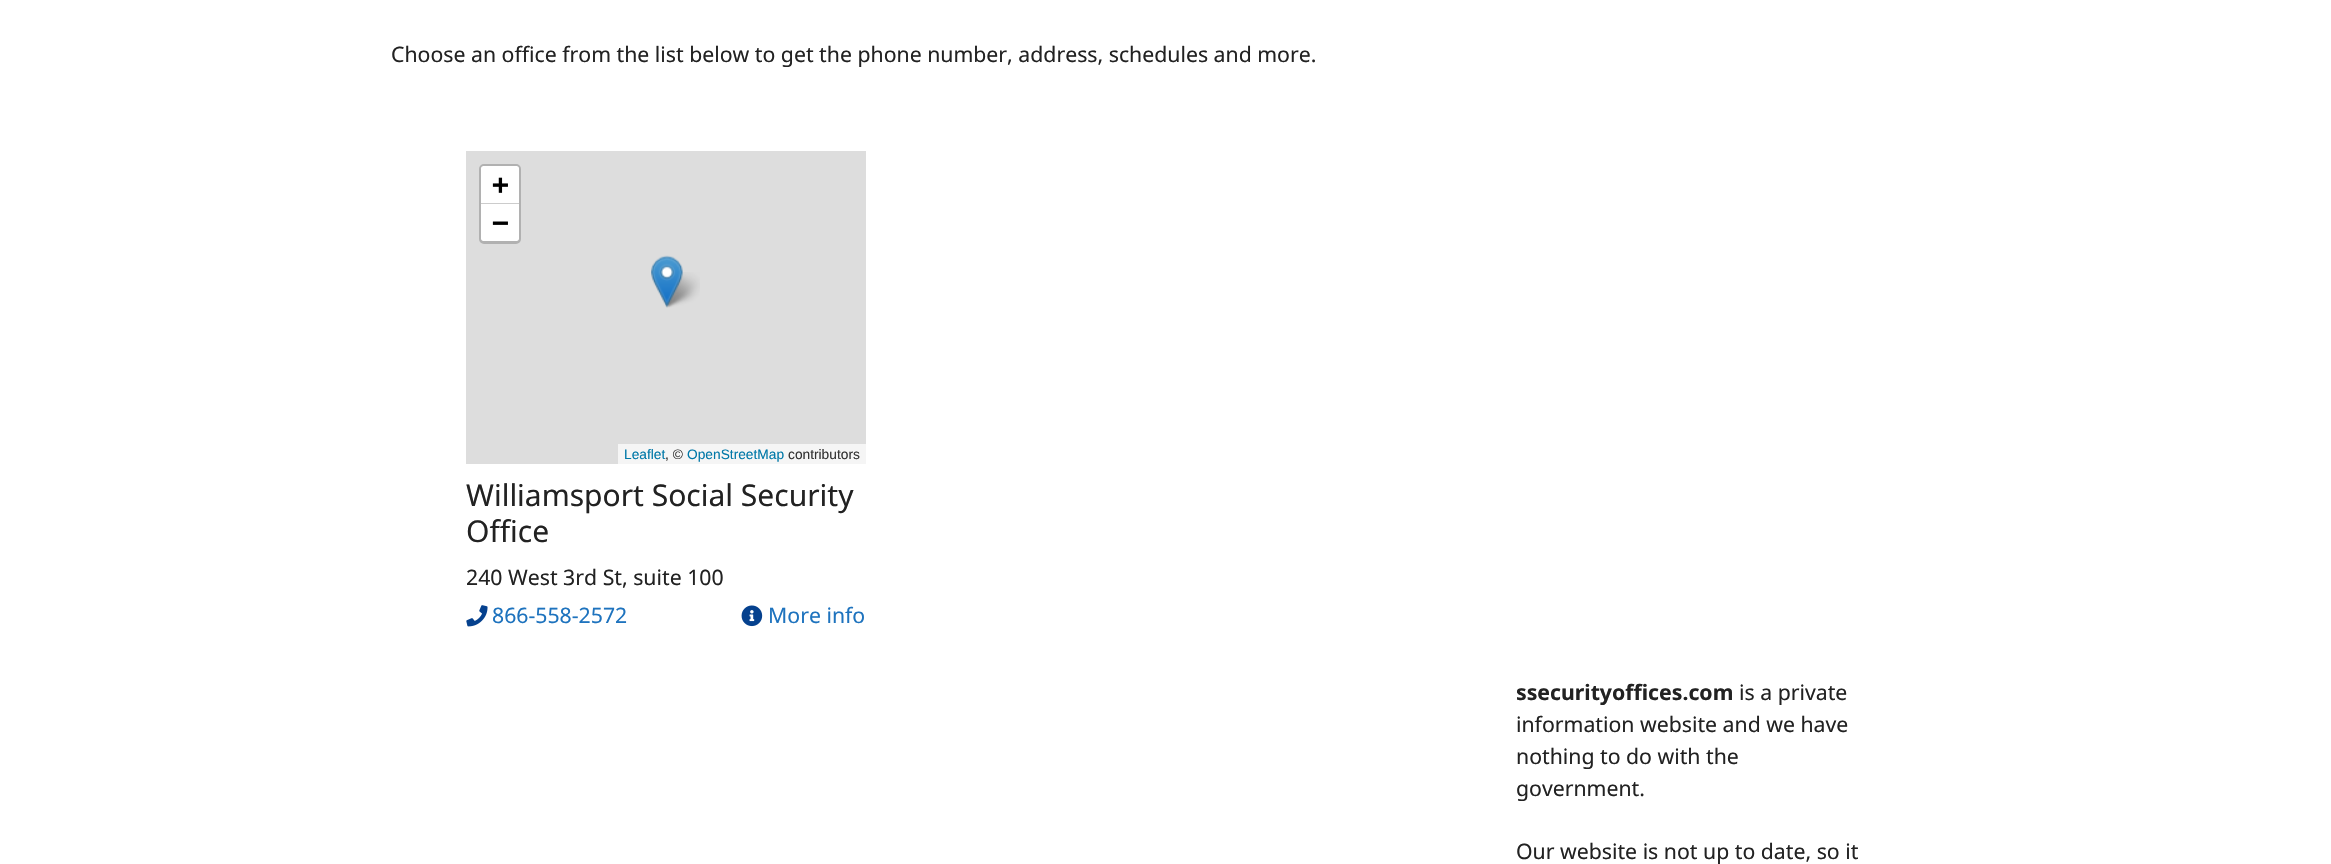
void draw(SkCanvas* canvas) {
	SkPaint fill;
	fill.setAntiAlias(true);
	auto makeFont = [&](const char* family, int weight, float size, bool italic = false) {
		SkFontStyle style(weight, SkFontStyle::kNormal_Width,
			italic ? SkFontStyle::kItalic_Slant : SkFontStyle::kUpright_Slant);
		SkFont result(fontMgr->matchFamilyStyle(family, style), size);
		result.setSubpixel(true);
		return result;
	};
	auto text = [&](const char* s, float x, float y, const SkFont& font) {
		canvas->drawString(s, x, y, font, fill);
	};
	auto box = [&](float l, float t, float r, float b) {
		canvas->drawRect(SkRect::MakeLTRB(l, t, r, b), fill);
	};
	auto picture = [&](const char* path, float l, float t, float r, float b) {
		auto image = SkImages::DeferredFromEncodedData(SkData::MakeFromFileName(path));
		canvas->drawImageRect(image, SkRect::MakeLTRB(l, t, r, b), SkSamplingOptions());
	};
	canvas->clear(0xFFFFFFFF);
	fill.setColor(0xFFDDDDDD);
	box(466, 151, 866, 464);
	fill.setStyle(SkPaint::kStroke_Style);
	fill.setStrokeWidth(3);
	fill.setColor(0xFFB1B1B1);
	canvas->drawRoundRect(SkRect::MakeLTRB(480.5f, 165.5f, 519.5f, 242.5f), 3.5f, 3.5f, fill);
	fill.setStyle(SkPaint::kFill_Style);
	fill.setColor(0xFFFFFFFF);
	canvas->drawPath(SkPathBuilder().moveTo(483.5f, 166).lineTo(516.5f, 166).cubicTo(518, 166, 519, 167, 519, 168.5f).lineTo(519, 204).lineTo(481, 204).lineTo(481, 168.5f).cubicTo(481, 167, 482, 166, 483.5f, 166).close().detach(), fill);
	fill.setColor(0xFFCCCCCC);
	box(481, 203, 519, 204);
	fill.setColor(0xFFFFFFFF);
	canvas->drawPath(SkPathBuilder().moveTo(481, 204).lineTo(519, 204).lineTo(519, 238.5f).cubicTo(519, 240, 518, 241, 516.5f, 241).lineTo(483.5f, 241).cubicTo(482, 241, 481, 240, 481, 238.5f).close().detach(), fill);
	fill.setColor(0xFFF5F5F5);
	box(618, 444, 866, 464);
	picture("image1.png", 662, 272, 700, 308);
	picture("image0.png", 651, 255, 683, 308);
	picture("image2.png", 466, 605, 488, 627);
	picture("image3.png", 741, 605, 763, 627);
	auto font1 = makeFont("Noto Sans", 400, 21.25f);
	fill.setColor(0xFF222222);
	text("Choose an office from the list below to get the phone number, address, schedules and more.", 391, 62, font1);
	auto font2 = makeFont("DejaVu Sans Mono", 700, 28);
	fill.setColor(0xFF000000);
	text("+", 492, 194, font2);
	text("−", 492, 232, font2);
	auto font3 = makeFont("Liberation Sans", 400, 13.75f);
	fill.setColor(0xFF0078A8);
	text("Leaflet", 624, 459, font3);
	fill.setColor(0xFF333333);
	text(", ©", 665, 459, font3);
	fill.setColor(0xFF0078A8);
	text("OpenStreetMap", 687, 459, font3);
	fill.setColor(0xFF333333);
	text("contributors", 788, 459, font3);
	auto font4 = makeFont("Noto Sans", 400, 30);
	fill.setColor(0xFF222222);
	text("Williamsport Social Security", 466, 506, font4);
	text("Office", 466, 542, font4);
	text("240 West 3rd St, suite 100", 466, 585, font1);
	fill.setColor(0xFF1E73BE);
	text("866-558-2572", 492, 623, font1);
	text("More info", 768, 623, font1);
	auto font5 = makeFont("Noto Sans", 700, 21.25f);
	fill.setColor(0xFF222222);
	text("ssecurityoffices.com", 1516, 700, font5);
	text("is a private", 1739, 700, font1);
	text("information website and we have", 1516, 732, font1);
	text("nothing to do with the", 1516, 764, font1);
	text("government.", 1516, 796, font1);
	text("Our website is not up to date, so it", 1516, 859, font1);
}
